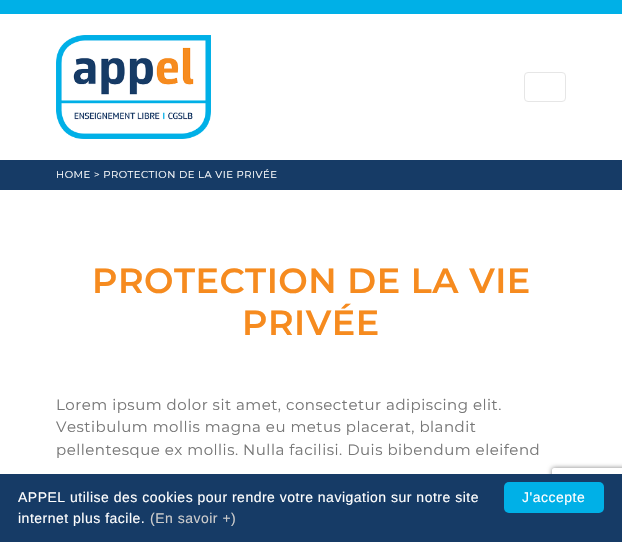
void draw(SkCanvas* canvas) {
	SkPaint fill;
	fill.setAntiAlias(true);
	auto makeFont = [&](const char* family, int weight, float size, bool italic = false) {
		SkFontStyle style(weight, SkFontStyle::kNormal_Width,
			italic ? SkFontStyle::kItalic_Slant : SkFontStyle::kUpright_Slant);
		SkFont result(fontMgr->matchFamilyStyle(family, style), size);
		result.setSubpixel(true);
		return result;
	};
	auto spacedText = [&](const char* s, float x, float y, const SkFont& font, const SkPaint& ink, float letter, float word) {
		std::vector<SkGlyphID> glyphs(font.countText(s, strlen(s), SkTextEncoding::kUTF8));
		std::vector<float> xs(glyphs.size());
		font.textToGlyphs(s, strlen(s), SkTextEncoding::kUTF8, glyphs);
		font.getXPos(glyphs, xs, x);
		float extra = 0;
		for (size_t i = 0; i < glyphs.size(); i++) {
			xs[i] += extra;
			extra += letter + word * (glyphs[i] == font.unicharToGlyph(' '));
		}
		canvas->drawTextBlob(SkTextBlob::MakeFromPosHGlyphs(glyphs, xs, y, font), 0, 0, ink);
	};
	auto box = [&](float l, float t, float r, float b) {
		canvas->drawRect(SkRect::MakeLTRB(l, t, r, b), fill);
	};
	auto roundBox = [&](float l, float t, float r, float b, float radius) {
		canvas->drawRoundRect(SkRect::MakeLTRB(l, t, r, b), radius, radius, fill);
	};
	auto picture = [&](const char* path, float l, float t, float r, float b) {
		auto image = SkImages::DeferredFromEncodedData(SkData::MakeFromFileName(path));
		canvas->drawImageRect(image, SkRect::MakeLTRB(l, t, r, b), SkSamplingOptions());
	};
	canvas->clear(0xFFFFFFFF);
	fill.setColor(0xFF00B0E7);
	box(0, 0, 622, 14);
	picture("image0.png", 56, 35, 211, 139);
	fill.setStyle(SkPaint::kStroke_Style);
	fill.setStrokeWidth(1);
	fill.setColor(0xFFE6E6E6);
	canvas->drawRoundRect(SkRect::MakeLTRB(524.5f, 72.5f, 565.5f, 101.5f), 3.5f, 3.5f, fill);
	fill.setStyle(SkPaint::kFill_Style);
	fill.setColor(0xFF163B66);
	box(0, 160, 622, 190);
	canvas->save();
	canvas->clipPath(SkPathBuilder(SkPathFillType::kEvenOdd).moveTo(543, 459).lineTo(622, 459).lineTo(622, 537).lineTo(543, 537).close().moveTo(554, 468).lineTo(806, 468).cubicTo(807, 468, 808, 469, 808, 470).lineTo(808, 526).cubicTo(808, 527, 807, 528, 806, 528).lineTo(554, 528).cubicTo(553, 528, 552, 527, 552, 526).lineTo(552, 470).cubicTo(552, 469, 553, 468, 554, 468).close().detach(), true);
	fill.setColor(0xFF808080);
	fill.setMaskFilter(SkMaskFilter::MakeBlur(kNormal_SkBlurStyle, 2.5f));
	canvas->drawRoundRect(SkRect::MakeLTRB(552, 468, 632, 528), 2, 2, fill);
	fill.setMaskFilter(nullptr);
	canvas->restore();
	fill.setColor(0xFF163B66);
	box(0, 474, 622, 542);
	fill.setColor(0xFF00B0E7);
	roundBox(504, 482, 604, 513, 5);
	auto font1 = makeFont("Montserrat", 400, 10);
	fill.setColor(0xFFFFFFFF);
	spacedText("HOME > PROTECTION DE LA VIE PRIVÉE", 56, 178, font1, fill, 0.5f, 0);
	auto font2 = makeFont("Montserrat", 600, 35);
	fill.setColor(0xFFF68B1F);
	spacedText("PROTECTION DE LA VIE", 92, 293, font2, fill, 0.5f, 0);
	spacedText("PRIVÉE", 242, 335, font2, fill, 0.5f, 0);
	auto font3 = makeFont("Montserrat", 400, 15);
	fill.setColor(0xFF777777);
	spacedText("Lorem ipsum dolor sit amet, consectetur adipiscing elit.", 56, 410, font3, fill, 0.5f, 0);
	spacedText("Vestibulum mollis magna eu metus placerat, blandit", 56, 432, font3, fill, 0.5f, 0);
	spacedText("pellentesque ex mollis. Nulla facilisi. Duis bibendum eleifend", 56, 455, font3, fill, 0.5f, 0);
	auto font4 = makeFont("Liberation Sans", 400, 14);
	fill.setColor(0xFFFFFFFF);
	spacedText("APPEL utilise des cookies pour rendre votre navigation sur notre site", 18, 502, font4, fill, 0.5f, 0);
	spacedText("internet plus facile.", 18, 523, font4, fill, 0.5f, 0);
	fill.setColor(0xFFCCCCCC);
	spacedText("(En savoir +)", 150, 523, font4, fill, 0.5f, 0);
	fill.setColor(0xFFFFFFFF);
	spacedText("J'accepte", 522, 502, font4, fill, 0.5f, 0);
}
